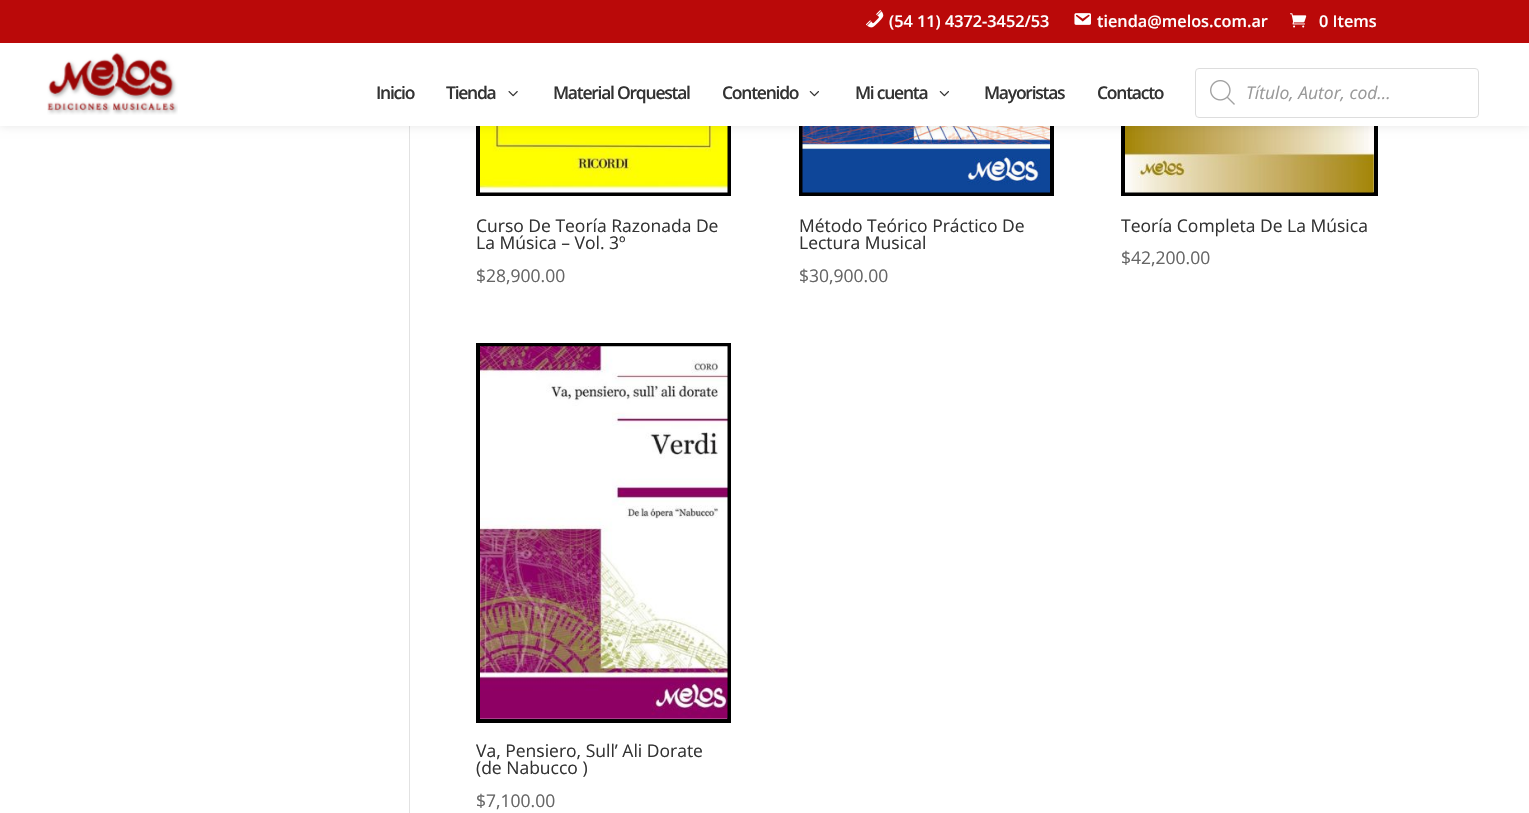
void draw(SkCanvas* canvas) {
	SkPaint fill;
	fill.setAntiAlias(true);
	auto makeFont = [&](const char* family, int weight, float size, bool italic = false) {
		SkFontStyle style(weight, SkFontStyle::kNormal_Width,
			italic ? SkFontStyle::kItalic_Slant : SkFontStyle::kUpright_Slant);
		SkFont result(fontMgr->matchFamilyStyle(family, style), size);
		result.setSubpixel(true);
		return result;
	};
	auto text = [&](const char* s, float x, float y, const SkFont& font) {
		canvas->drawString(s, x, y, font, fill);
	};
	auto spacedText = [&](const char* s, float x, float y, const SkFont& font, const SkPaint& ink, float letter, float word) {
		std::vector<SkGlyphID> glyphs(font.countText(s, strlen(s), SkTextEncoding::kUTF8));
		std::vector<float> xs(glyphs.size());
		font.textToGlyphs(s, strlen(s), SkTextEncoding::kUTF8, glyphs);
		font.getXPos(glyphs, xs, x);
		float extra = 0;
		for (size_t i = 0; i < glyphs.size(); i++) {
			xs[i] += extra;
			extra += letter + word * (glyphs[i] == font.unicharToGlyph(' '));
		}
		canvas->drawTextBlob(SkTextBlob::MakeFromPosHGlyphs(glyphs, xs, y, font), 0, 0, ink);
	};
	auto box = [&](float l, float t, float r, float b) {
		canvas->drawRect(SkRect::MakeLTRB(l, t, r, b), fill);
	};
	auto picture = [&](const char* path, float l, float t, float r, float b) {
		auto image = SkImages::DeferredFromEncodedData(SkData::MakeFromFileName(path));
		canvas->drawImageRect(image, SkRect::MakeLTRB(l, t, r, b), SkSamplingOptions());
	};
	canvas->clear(0xFFFFFFFF);
	fill.setColor(0xFFE2E2E2);
	box(409, 126, 410, 813);
	fill.setStyle(SkPaint::kStroke_Style);
	fill.setStrokeWidth(4);
	fill.setColor(0xFF000000);
	canvas->drawRect(SkRect::MakeLTRB(478, -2, 729, 194), fill);
	picture("image7.png", 480, 126, 728, 193);
	canvas->drawRect(SkRect::MakeLTRB(801, -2, 1052, 194), fill);
	picture("image8.png", 802, 126, 1050, 193);
	canvas->drawRect(SkRect::MakeLTRB(1123, -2, 1376, 194), fill);
	picture("image9.png", 1125, 126, 1374, 193);
	fill.setStyle(SkPaint::kFill_Style);
	fill.setColor(0x1A000000);
	fill.setMaskFilter(SkMaskFilter::MakeBlur(kNormal_SkBlurStyle, 4.5f));
	canvas->drawRect(SkRect::MakeLTRB(0, 43, 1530, 126), fill);
	fill.setMaskFilter(nullptr);
	fill.setColor(0xFFBA0909);
	box(0, 0, 1529, 43);
	picture("image0.png", 866, 10, 884, 28);
	picture("image1.png", 1074, 13, 1091, 25);
	picture("image2.png", 1290, 13, 1307, 28);
	fill.setColor(0xFFFFFFFF);
	box(0, 43, 1529, 126);
	picture("image3.png", 47, 52, 178, 115);
	picture("image4.png", 508, 91, 518, 97);
	picture("image5.png", 809, 91, 819, 97);
	picture("image5.png", 939, 91, 949, 97);
	fill.setStyle(SkPaint::kStroke_Style);
	fill.setStrokeWidth(1);
	fill.setColor(0xFFDDDDDD);
	canvas->drawRoundRect(SkRect::MakeLTRB(1195.5f, 68.5f, 1478.5f, 117.5f), 3.5f, 3.5f, fill);
	picture("image6.png", 1210, 80, 1235, 105);
	fill.setStrokeWidth(4);
	fill.setColor(0xFF000000);
	canvas->drawRect(SkRect::MakeLTRB(478, 345, 729, 721), fill);
	picture("image10.png", 480, 346, 728, 719);
	auto font1 = makeFont("Open Sans", 600, 16.25f);
	fill.setStyle(SkPaint::kFill_Style);
	fill.setColor(0xFFFFFFFF);
	text("(54 11) 4372-3452/53", 889, 27, font1);
	text("tienda@melos.com.ar", 1097, 27, font1);
	text("0 Items", 1319, 27, font1);
	auto font2 = makeFont("Open Sans", 600, 17.5f);
	fill.setColor(0xFF333333);
	spacedText("Inicio", 376, 99, font2, fill, -1.25f, 0);
	spacedText("Tienda", 446, 99, font2, fill, -1.25f, 0);
	spacedText("Material Orquestal", 553, 99, font2, fill, -1.25f, 0);
	spacedText("Contenido", 722, 99, font2, fill, -1.25f, 0);
	spacedText("Mi cuenta", 855, 99, font2, fill, -1.25f, 0);
	spacedText("Mayoristas", 984, 99, font2, fill, -1.25f, 0);
	spacedText("Contacto", 1097, 99, font2, fill, -1.25f, 0);
	auto font3 = makeFont("Open Sans", 400, 17.5f, true);
	fill.setColor(0xFF999999);
	text("Título, Autor, cod...", 1246, 99, font3);
	auto font4 = makeFont("Open Sans", 400, 17.5f);
	fill.setColor(0xFF333333);
	text("Curso De Teoría Razonada De", 476, 232, font4);
	text("La Música – Vol. 3º", 476, 249, font4);
	fill.setColor(0xFF666666);
	text("$28,900.00", 476, 282, font4);
	fill.setColor(0xFF333333);
	text("Método Teórico Práctico De", 799, 232, font4);
	text("Lectura Musical", 799, 249, font4);
	fill.setColor(0xFF666666);
	text("$30,900.00", 799, 282, font4);
	fill.setColor(0xFF333333);
	text("Teoría Completa De La Música", 1121, 232, font4);
	fill.setColor(0xFF666666);
	text("$42,200.00", 1121, 264, font4);
	fill.setColor(0xFF333333);
	text("Va, Pensiero, Sull’ Ali Dorate", 476, 757, font4);
	text("(de Nabucco )", 476, 774, font4);
	fill.setColor(0xFF666666);
	text("$7,100.00", 476, 807, font4);
}
